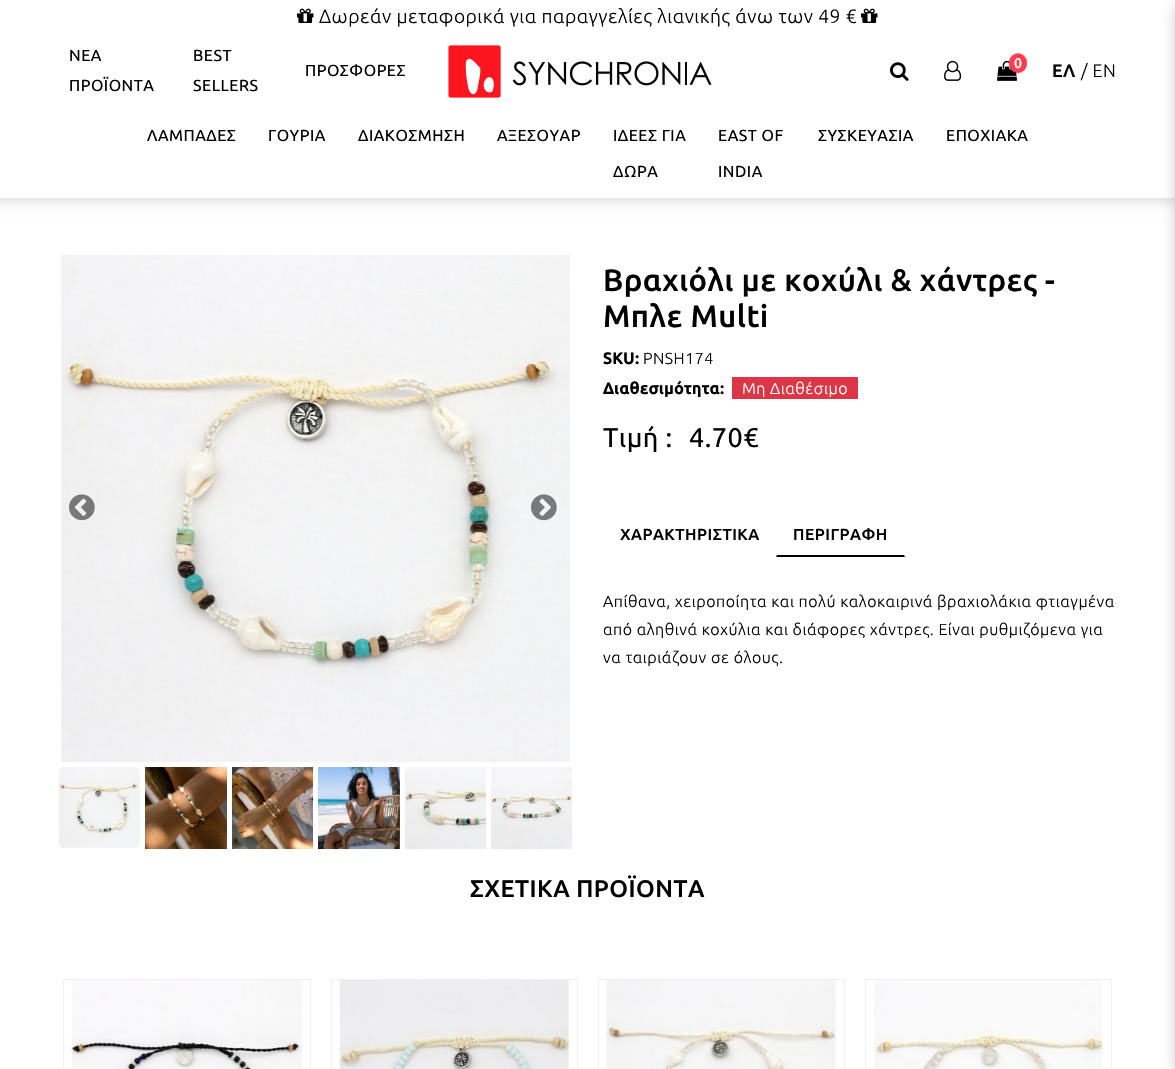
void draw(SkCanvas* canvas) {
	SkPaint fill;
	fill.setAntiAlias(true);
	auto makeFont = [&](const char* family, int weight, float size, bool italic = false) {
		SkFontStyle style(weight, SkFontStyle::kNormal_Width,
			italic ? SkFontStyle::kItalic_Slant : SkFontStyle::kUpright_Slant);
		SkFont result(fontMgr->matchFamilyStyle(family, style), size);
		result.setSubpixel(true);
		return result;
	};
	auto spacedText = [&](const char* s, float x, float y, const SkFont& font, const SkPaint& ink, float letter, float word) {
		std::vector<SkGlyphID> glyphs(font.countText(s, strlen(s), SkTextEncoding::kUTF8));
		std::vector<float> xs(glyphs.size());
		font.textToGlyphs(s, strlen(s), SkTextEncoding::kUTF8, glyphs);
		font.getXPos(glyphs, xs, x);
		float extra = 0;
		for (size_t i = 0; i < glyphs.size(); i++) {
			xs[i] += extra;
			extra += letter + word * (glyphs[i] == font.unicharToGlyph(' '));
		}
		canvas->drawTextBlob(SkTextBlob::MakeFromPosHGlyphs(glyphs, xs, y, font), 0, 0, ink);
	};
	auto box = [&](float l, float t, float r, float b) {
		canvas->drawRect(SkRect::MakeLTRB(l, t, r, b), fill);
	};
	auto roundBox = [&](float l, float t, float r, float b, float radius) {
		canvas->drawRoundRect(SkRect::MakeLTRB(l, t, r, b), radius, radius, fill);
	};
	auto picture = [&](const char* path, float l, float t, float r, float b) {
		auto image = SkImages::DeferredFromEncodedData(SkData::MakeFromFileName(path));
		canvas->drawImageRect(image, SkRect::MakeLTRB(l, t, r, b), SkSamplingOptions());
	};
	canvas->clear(0xFFFFFFFF);
	fill.setColor(0x33000000);
	fill.setMaskFilter(SkMaskFilter::MakeBlur(kNormal_SkBlurStyle, 7.5f));
	canvas->drawRect(SkRect::MakeLTRB(-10, -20, 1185, 198), fill);
	fill.setMaskFilter(nullptr);
	fill.setColor(0xFFFFFFFF);
	box(0, 0, 1175, 198);
	picture("image0.png", 297, 8, 314, 23);
	picture("image0.png", 861, 8, 878, 23);
	fill.setColor(0xB3000000);
	fill.setMaskFilter(SkMaskFilter::MakeBlur(kNormal_SkBlurStyle, 10));
	canvas->drawRect(SkRect::MakeLTRB(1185, 5, 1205, 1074), fill);
	fill.setMaskFilter(nullptr);
	picture("image1.png", 448, 45, 712, 98);
	picture("image2.png", 890, 62, 909, 81);
	picture("image3.png", 944, 60, 962, 81);
	picture("image4.png", 997, 60, 1017, 81);
	fill.setColor(0x14000000);
	fill.setMaskFilter(SkMaskFilter::MakeBlur(kNormal_SkBlurStyle, 0.5f));
	canvas->drawRoundRect(SkRect::MakeLTRB(1009, 54, 1027, 74), 9, 9, fill);
	fill.setMaskFilter(nullptr);
	fill.setColor(0xFFFF3B4E);
	roundBox(1009, 53, 1027, 73, 9);
	fill.setColor(0x4DFFFFFF);
	canvas->drawPath(SkPathBuilder().moveTo(1018, 54).cubicTo(1024, 54, 1027, 59, 1027, 64).lineTo(1027, 62).cubicTo(1027, 57, 1023, 53, 1018, 53).cubicTo(1013, 53, 1009, 57, 1009, 62).lineTo(1009, 64).cubicTo(1009, 59, 1012, 54, 1018, 54).close().detach(), fill);
	picture("image5.png", 61, 255, 570, 762);
	picture("image6.png", 69, 494, 95, 521);
	picture("image7.png", 531, 494, 557, 521);
	picture("image8.png", 59, 767, 140, 848);
	picture("image9.png", 145, 767, 227, 849);
	picture("image10.png", 232, 767, 313, 849);
	picture("image11.png", 318, 767, 400, 849);
	picture("image12.png", 405, 767, 486, 849);
	picture("image13.png", 491, 767, 572, 849);
	fill.setColor(0xFFDC3545);
	box(732, 377, 858, 399);
	fill.setColor(0xFF000000);
	canvas->drawPath(SkPathBuilder().moveTo(905, 557).lineTo(904, 555).lineTo(777, 555).lineTo(776, 557).close().detach(), fill);
	fill.setColor(0x26FFFFFF);
	canvas->drawPath(SkPathBuilder().moveTo(776, 557).lineTo(777, 555).lineTo(777, 515).lineTo(778, 513).lineTo(777, 512).lineTo(776, 515).close().detach(), fill);
	fill.setStyle(SkPaint::kStroke_Style);
	fill.setStrokeWidth(1);
	fill.setColor(0xFFEFEFEF);
	canvas->drawRect(SkRect::MakeLTRB(63.5f, 979.5f, 310.5f, 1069.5f), fill);
	picture("image14.png", 71, 980, 302, 1069);
	canvas->drawRect(SkRect::MakeLTRB(331.5f, 979.5f, 577.5f, 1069.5f), fill);
	picture("image15.png", 339, 980, 569, 1069);
	canvas->drawRect(SkRect::MakeLTRB(598.5f, 979.5f, 844.5f, 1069.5f), fill);
	picture("image16.png", 606, 980, 836, 1069);
	canvas->drawRect(SkRect::MakeLTRB(865.5f, 979.5f, 1111.5f, 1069.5f), fill);
	picture("image17.png", 874, 980, 1103, 1069);
	auto font1 = makeFont("Ubuntu", 300, 19.2f);
	fill.setStyle(SkPaint::kFill_Style);
	fill.setColor(0xFF000000);
	spacedText("Δωρεάν μεταφορικά για παραγγελίες λιανικής άνω των 49 €", 319, 23, font1, fill, 0.5f, 0);
	auto font2 = makeFont("Ubuntu", 400, 16);
	spacedText("ΝΕΑ", 69, 61, font2, fill, 0.5f, 0);
	spacedText("ΠΡΟΪΟΝΤΑ", 69, 91, font2, fill, 0.5f, 0);
	spacedText("BEST", 193, 61, font2, fill, 0.5f, 0);
	spacedText("SELLERS", 193, 91, font2, fill, 0.5f, 0);
	spacedText("ΠΡΟΣΦΟΡΕΣ", 305, 76, font2, fill, 0.5f, 0);
	auto font3 = makeFont("Ubuntu", 500, 14);
	fill.setColor(0xFFFFFFFF);
	spacedText("0", 1014, 68, font3, fill, 0.5f, 0);
	auto font4 = makeFont("Ubuntu", 500, 18);
	fill.setColor(0xFF000000);
	spacedText("ΕΛ", 1052, 77, font4, fill, 0.5f, 0);
	auto font5 = makeFont("Ubuntu", 300, 18);
	spacedText("/ EN", 1081, 77, font5, fill, 0.5f, 0);
	spacedText("ΛΑΜΠΑΔΕΣ", 147, 141, font2, fill, 0.5f, 0);
	spacedText("ΓΟΥΡΙΑ", 268, 141, font2, fill, 0.5f, 0);
	spacedText("ΔΙΑΚΟΣΜΗΣΗ", 358, 141, font2, fill, 0.5f, 0);
	spacedText("ΑΞΕΣΟΥΑΡ", 497, 141, font2, fill, 0.5f, 0);
	spacedText("ΙΔΕΕΣ ΓΙΑ", 613, 141, font2, fill, 0.5f, 0);
	spacedText("ΔΩΡΑ", 613, 177, font2, fill, 0.5f, 0);
	spacedText("EAST OF", 718, 141, font2, fill, 0.5f, 0);
	spacedText("INDIA", 718, 177, font2, fill, 0.5f, 0);
	spacedText("ΣΥΣΚΕΥΑΣΙΑ", 818, 141, font2, fill, 0.5f, 0);
	spacedText("ΕΠΟΧΙΑΚΑ", 946, 141, font2, fill, 0.5f, 0);
	auto font6 = makeFont("Ubuntu", 500, 30.9f);
	spacedText("Βραχιόλι με κοχύλι & χάντρες -", 603, 291, font6, fill, 0.5f, 0);
	spacedText("Μπλε Multi", 603, 327, font6, fill, 0.5f, 0);
	auto font7 = makeFont("Ubuntu", 700, 16);
	spacedText("SKU:", 603, 364, font7, fill, 0.5f, 0);
	auto font8 = makeFont("Ubuntu", 300, 16);
	spacedText("PNSH174", 643, 364, font8, fill, 0.5f, 0);
	spacedText("Διαθεσιμότητα:", 603, 394, font7, fill, 0.5f, 0);
	fill.setColor(0xFFFFFFFF);
	spacedText("Μη Διαθέσιμο", 742, 394, font8, fill, 0.5f, 0);
	auto font9 = makeFont("Ubuntu", 400, 27);
	fill.setColor(0xFF000000);
	spacedText("Τιμή :", 603, 447, font9, fill, 0.5f, 0);
	spacedText("4.70€", 689, 447, font9, fill, 0.5f, 0);
	auto font10 = makeFont("Ubuntu", 500, 16);
	spacedText("ΧΑΡΑΚΤΗΡΙΣΤΙΚΑ", 620, 540, font10, fill, 0.5f, 0);
	spacedText("ΠΕΡΙΓΡΑΦΗ", 793, 540, font10, fill, 0.5f, 0);
	spacedText("Απίθανα, χειροποίητα και πολύ καλοκαιρινά βραχιολάκια φτιαγμένα", 603, 607, font8, fill, 0.5f, 0);
	spacedText("από αληθινά κοχύλια και διάφορες χάντρες. Είναι ρυθμιζόμενα για", 603, 635, font8, fill, 0.5f, 0);
	spacedText("να ταιριάζουν σε όλους.", 603, 663, font8, fill, 0.5f, 0);
	auto font11 = makeFont("Ubuntu", 500, 24);
	spacedText("ΣΧΕΤΙΚΑ ΠΡΟΪΟΝΤΑ", 470, 897, font11, fill, 0.5f, 0);
}
